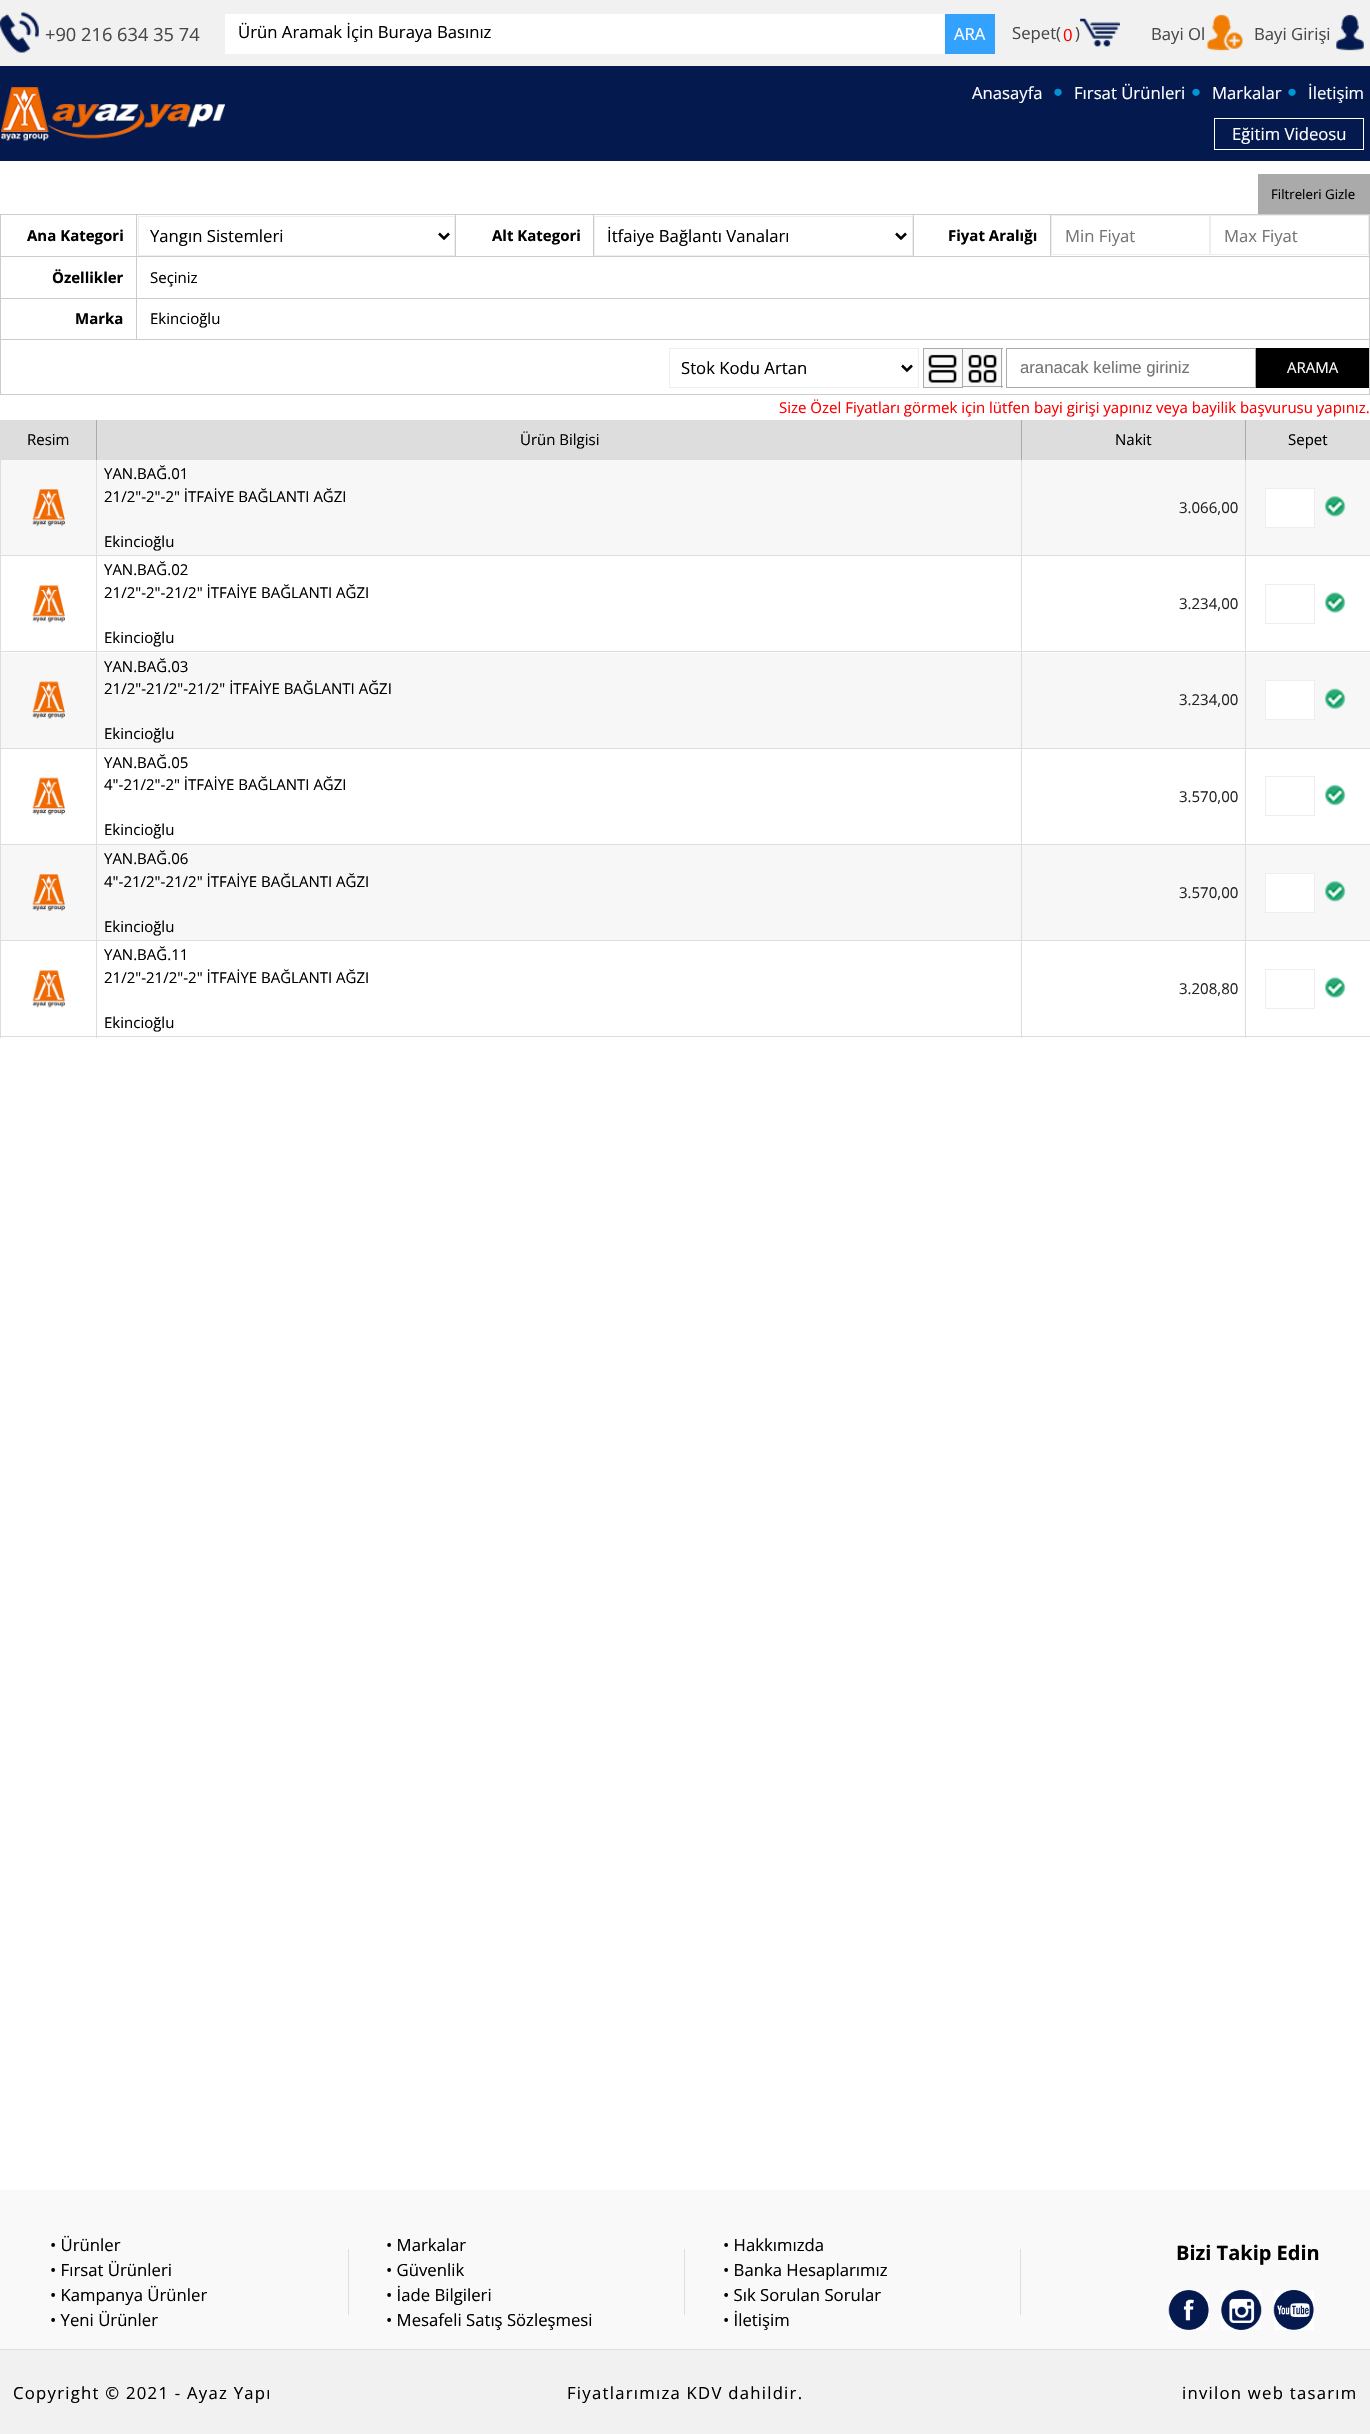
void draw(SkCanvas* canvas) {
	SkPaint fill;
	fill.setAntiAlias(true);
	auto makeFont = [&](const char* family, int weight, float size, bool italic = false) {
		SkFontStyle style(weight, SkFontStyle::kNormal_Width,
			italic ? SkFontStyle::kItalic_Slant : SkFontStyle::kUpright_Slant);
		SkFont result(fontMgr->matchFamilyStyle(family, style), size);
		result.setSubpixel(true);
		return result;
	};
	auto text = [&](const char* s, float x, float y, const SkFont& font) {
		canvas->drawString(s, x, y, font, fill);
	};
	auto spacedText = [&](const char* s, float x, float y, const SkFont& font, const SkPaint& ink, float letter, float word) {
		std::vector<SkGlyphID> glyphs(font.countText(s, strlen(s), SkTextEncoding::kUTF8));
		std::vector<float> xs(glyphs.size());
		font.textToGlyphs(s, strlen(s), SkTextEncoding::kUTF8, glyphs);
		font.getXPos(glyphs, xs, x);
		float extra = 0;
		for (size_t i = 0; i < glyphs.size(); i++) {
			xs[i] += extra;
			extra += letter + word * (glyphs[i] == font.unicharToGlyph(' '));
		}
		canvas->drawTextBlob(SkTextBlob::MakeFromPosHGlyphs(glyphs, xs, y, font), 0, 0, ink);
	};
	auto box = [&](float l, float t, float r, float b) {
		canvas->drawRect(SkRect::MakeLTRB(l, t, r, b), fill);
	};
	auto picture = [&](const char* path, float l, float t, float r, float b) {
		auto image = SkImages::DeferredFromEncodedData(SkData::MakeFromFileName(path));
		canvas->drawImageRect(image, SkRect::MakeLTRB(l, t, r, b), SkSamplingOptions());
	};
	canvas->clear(0xFFFFFFFF);
	fill.setColor(0xFFF1F1F1);
	box(0, 0, 1370, 66);
	picture("image0.png", 0, 12, 39, 53);
	fill.setColor(0xFFFFFFFF);
	box(225, 14, 945, 54);
	fill.setColor(0xFF33A2FF);
	box(945, 14, 995, 54);
	picture("image1.png", 1080, 18, 1120, 47);
	picture("image2.png", 1207, 14, 1243, 51);
	picture("image3.png", 1336, 14, 1364, 51);
	fill.setColor(0xFF041A4F);
	box(0, 66, 1370, 161);
	picture("image4.png", 1, 87, 225, 141);
	fill.setStyle(SkPaint::kStroke_Style);
	fill.setStrokeWidth(1);
	fill.setColor(0xFFFFFFFF);
	canvas->drawRect(SkRect::MakeLTRB(1214.5f, 118.5f, 1363.5f, 149.5f), fill);
	fill.setStyle(SkPaint::kFill_Style);
	fill.setColor(0xFFAAAAAA);
	box(1258, 174, 1370, 214);
	fill.setColor(0xFFCCCCCC);
	box(0, 214, 1370, 215);
	box(136, 214, 137, 256);
	box(0, 214, 1, 256);
	box(455, 214, 456, 256);
	fill.setStyle(SkPaint::kStroke_Style);
	fill.setColor(0xFFEEEEEE);
	canvas->drawRect(SkRect::MakeLTRB(138.5f, 216.5f, 454.5f, 255.5f), fill);
	fill.setStrokeWidth(2.5f);
	fill.setColor(0xFF000000);
	canvas->drawPath(SkPathBuilder().moveTo(439, 233.5f).lineTo(444, 238.5f).lineTo(449, 233.5f).detach(), fill);
	fill.setStyle(SkPaint::kFill_Style);
	fill.setColor(0xFFCCCCCC);
	box(593, 214, 594, 256);
	box(913, 214, 914, 256);
	fill.setStyle(SkPaint::kStroke_Style);
	fill.setStrokeWidth(1);
	fill.setColor(0xFFEEEEEE);
	canvas->drawRect(SkRect::MakeLTRB(594.5f, 216.5f, 912.5f, 255.5f), fill);
	fill.setStrokeWidth(2.5f);
	fill.setColor(0xFF000000);
	canvas->drawPath(SkPathBuilder().moveTo(896, 233.5f).lineTo(901, 238.5f).lineTo(906, 233.5f).detach(), fill);
	fill.setStyle(SkPaint::kFill_Style);
	fill.setColor(0xFFCCCCCC);
	box(1050, 214, 1051, 256);
	box(1369, 214, 1370, 256);
	fill.setStyle(SkPaint::kStroke_Style);
	fill.setStrokeWidth(1);
	fill.setColor(0xFFEEEEEE);
	canvas->drawRect(SkRect::MakeLTRB(1051.5f, 215.5f, 1209.5f, 254.5f), fill);
	canvas->drawRect(SkRect::MakeLTRB(1210.5f, 215.5f, 1368.5f, 254.5f), fill);
	fill.setStyle(SkPaint::kFill_Style);
	fill.setColor(0xFFCCCCCC);
	box(0, 256, 1370, 257);
	box(136, 256, 137, 298);
	box(0, 256, 1, 298);
	box(0, 298, 1370, 299);
	box(136, 298, 137, 339);
	box(0, 298, 1, 339);
	box(1369, 256, 1370, 339);
	fill.setStyle(SkPaint::kStroke_Style);
	canvas->drawRect(SkRect::MakeLTRB(0.5f, 339.5f, 1369.5f, 394.5f), fill);
	fill.setColor(0xFFEEEEEE);
	canvas->drawRect(SkRect::MakeLTRB(669.5f, 348.5f, 918.5f, 387.5f), fill);
	fill.setStrokeWidth(2.5f);
	fill.setColor(0xFF000000);
	canvas->drawPath(SkPathBuilder().moveTo(902, 365.5f).lineTo(907, 370.5f).lineTo(912, 365.5f).detach(), fill);
	fill.setStyle(SkPaint::kFill_Style);
	fill.setColor(0xFFF9F9F9);
	canvas->drawRect(SkRect::MakeLTRB(923.5f, 348.5f, 962.5f, 387.5f), fill);
	fill.setStyle(SkPaint::kStroke_Style);
	fill.setStrokeWidth(1);
	fill.setColor(0xFFAAAAAA);
	canvas->drawRect(SkRect::MakeLTRB(923.5f, 348.5f, 962.5f, 387.5f), fill);
	picture("image5.png", 928, 354, 957, 383);
	fill.setStyle(SkPaint::kFill_Style);
	fill.setColor(0xFFF9F9F9);
	box(963, 349, 1003, 388);
	fill.setColor(0xFFAAAAAA);
	box(963, 348, 1003, 349);
	box(1001, 348, 1002, 388);
	box(963, 386, 1003, 387);
	picture("image6.png", 968, 354, 997, 383);
	fill.setStyle(SkPaint::kStroke_Style);
	canvas->drawRect(SkRect::MakeLTRB(1006.5f, 348.5f, 1255.5f, 387.5f), fill);
	fill.setStyle(SkPaint::kFill_Style);
	fill.setColor(0xFF000000);
	box(1256, 348, 1369, 388);
	fill.setColor(0xFFDDDDDD);
	box(0, 420, 96, 460);
	box(97, 420, 1021, 460);
	fill.setColor(0xFFAAAAAA);
	box(96, 420, 97, 460);
	fill.setColor(0xFFDDDDDD);
	box(1022, 420, 1245, 460);
	fill.setColor(0xFFAAAAAA);
	box(1021, 420, 1022, 460);
	fill.setColor(0xFFDDDDDD);
	box(1246, 420, 1370, 460);
	fill.setColor(0xFFAAAAAA);
	box(1245, 420, 1246, 460);
	fill.setColor(0xFFF7F7F7);
	box(1, 460, 96, 555);
	fill.setColor(0xFFDDDDDD);
	box(0, 555, 1370, 556);
	box(0, 460, 1, 556);
	picture("image7.png", 32, 489, 65, 526);
	fill.setColor(0xFFF7F7F7);
	box(97, 460, 1021, 555);
	fill.setColor(0xFFDDDDDD);
	box(96, 460, 97, 556);
	fill.setColor(0xFFF7F7F7);
	box(1022, 460, 1245, 555);
	fill.setColor(0xFFDDDDDD);
	box(1021, 460, 1022, 556);
	fill.setColor(0xFFF7F7F7);
	box(1246, 460, 1370, 555);
	fill.setColor(0xFFDDDDDD);
	box(1245, 460, 1246, 556);
	fill.setColor(0xFFFFFFFF);
	canvas->drawRect(SkRect::MakeLTRB(1265.5f, 488.5f, 1314.5f, 527.5f), fill);
	fill.setStyle(SkPaint::kStroke_Style);
	fill.setColor(0xFFEEEEEE);
	canvas->drawRect(SkRect::MakeLTRB(1265.5f, 488.5f, 1314.5f, 527.5f), fill);
	picture("image8.png", 1324, 496, 1346, 517);
	fill.setStyle(SkPaint::kFill_Style);
	fill.setColor(0xFFDDDDDD);
	box(0, 651, 1370, 652);
	box(0, 556, 1, 653);
	picture("image9.png", 32, 585, 65, 623);
	box(96, 556, 97, 653);
	box(1021, 556, 1022, 653);
	box(1245, 556, 1246, 653);
	fill.setStyle(SkPaint::kStroke_Style);
	fill.setColor(0xFFEEEEEE);
	canvas->drawRect(SkRect::MakeLTRB(1265.5f, 584.5f, 1314.5f, 623.5f), fill);
	picture("image10.png", 1324, 592, 1346, 613);
	fill.setStyle(SkPaint::kFill_Style);
	fill.setColor(0xFFF7F7F7);
	box(1, 653, 96, 748);
	fill.setColor(0xFFDDDDDD);
	box(0, 748, 1370, 749);
	box(0, 653, 1, 749);
	picture("image11.png", 32, 681, 65, 719);
	fill.setColor(0xFFF7F7F7);
	box(97, 653, 1021, 748);
	fill.setColor(0xFFDDDDDD);
	box(96, 653, 97, 749);
	fill.setColor(0xFFF7F7F7);
	box(1022, 653, 1245, 748);
	fill.setColor(0xFFDDDDDD);
	box(1021, 653, 1022, 749);
	fill.setColor(0xFFF7F7F7);
	box(1246, 653, 1370, 748);
	fill.setColor(0xFFDDDDDD);
	box(1245, 653, 1246, 749);
	fill.setColor(0xFFFFFFFF);
	canvas->drawRect(SkRect::MakeLTRB(1265.5f, 680.5f, 1314.5f, 719.5f), fill);
	fill.setStyle(SkPaint::kStroke_Style);
	fill.setColor(0xFFEEEEEE);
	canvas->drawRect(SkRect::MakeLTRB(1265.5f, 680.5f, 1314.5f, 719.5f), fill);
	picture("image12.png", 1324, 688, 1346, 709);
	fill.setStyle(SkPaint::kFill_Style);
	fill.setColor(0xFFDDDDDD);
	box(0, 844, 1370, 845);
	box(0, 749, 1, 845);
	picture("image13.png", 32, 777, 65, 815);
	box(96, 749, 97, 845);
	box(1021, 749, 1022, 845);
	box(1245, 749, 1246, 845);
	fill.setStyle(SkPaint::kStroke_Style);
	fill.setColor(0xFFEEEEEE);
	canvas->drawRect(SkRect::MakeLTRB(1265.5f, 776.5f, 1314.5f, 815.5f), fill);
	picture("image14.png", 1324, 784, 1346, 806);
	fill.setStyle(SkPaint::kFill_Style);
	fill.setColor(0xFFF7F7F7);
	box(1, 845, 96, 940);
	fill.setColor(0xFFDDDDDD);
	box(0, 940, 1370, 941);
	box(0, 845, 1, 941);
	picture("image15.png", 32, 874, 65, 911);
	fill.setColor(0xFFF7F7F7);
	box(97, 845, 1021, 940);
	fill.setColor(0xFFDDDDDD);
	box(96, 845, 97, 941);
	fill.setColor(0xFFF7F7F7);
	box(1022, 845, 1245, 940);
	fill.setColor(0xFFDDDDDD);
	box(1021, 845, 1022, 941);
	fill.setColor(0xFFF7F7F7);
	box(1246, 845, 1370, 940);
	fill.setColor(0xFFDDDDDD);
	box(1245, 845, 1246, 941);
	fill.setColor(0xFFFFFFFF);
	canvas->drawRect(SkRect::MakeLTRB(1265.5f, 873.5f, 1314.5f, 912.5f), fill);
	fill.setStyle(SkPaint::kStroke_Style);
	fill.setColor(0xFFEEEEEE);
	canvas->drawRect(SkRect::MakeLTRB(1265.5f, 873.5f, 1314.5f, 912.5f), fill);
	picture("image8.png", 1324, 881, 1346, 902);
	fill.setStyle(SkPaint::kFill_Style);
	fill.setColor(0xFFDDDDDD);
	box(0, 1036, 1370, 1037);
	box(0, 941, 1, 1038);
	picture("image9.png", 32, 970, 65, 1008);
	box(96, 941, 97, 1038);
	box(1021, 941, 1022, 1038);
	box(1245, 941, 1246, 1038);
	fill.setStyle(SkPaint::kStroke_Style);
	fill.setColor(0xFFEEEEEE);
	canvas->drawRect(SkRect::MakeLTRB(1265.5f, 969.5f, 1314.5f, 1008.5f), fill);
	picture("image16.png", 1324, 977, 1346, 998);
	fill.setStyle(SkPaint::kFill_Style);
	fill.setColor(0xFFF9F9F9);
	box(0, 2190, 1370, 2349);
	fill.setColor(0xFFDEDEDE);
	box(348, 2249, 349, 2315);
	box(684, 2249, 685, 2315);
	box(1020, 2249, 1021, 2315);
	fill.setColor(0xFFFFFFFF);
	box(1169, 2290, 1209, 2330);
	picture("image17.png", 1168, 2290, 1209, 2330);
	box(1221, 2290, 1261, 2330);
	picture("image18.png", 1221, 2290, 1262, 2330);
	box(1274, 2290, 1314, 2330);
	picture("image19.png", 1273, 2290, 1314, 2330);
	fill.setColor(0xFFF1F1F1);
	box(0, 2350, 1370, 2434);
	fill.setColor(0xFFDEDEDE);
	box(0, 2349, 1370, 2350);
	auto font1 = makeFont("Open Sans", 400, 18.25f);
	fill.setColor(0xFF484848);
	text("+90 216 634 35 74", 45, 41, font1);
	auto font2 = makeFont("Open Sans", 400, 16.7f);
	fill.setColor(0xFF000000);
	text("Ürün Aramak İçin Buraya Basınız", 238, 38, font2);
	fill.setColor(0xFFFFFFFF);
	text("ARA", 954, 40, font2);
	fill.setColor(0xFF484848);
	text("Sepet(", 1012, 39, font2);
	fill.setColor(0xFFFF0000);
	text("0", 1063, 41, font2);
	fill.setColor(0xFF484848);
	text(")", 1075, 39, font2);
	text("Bayi Ol", 1151, 40, font2);
	text("Bayi Girişi", 1254, 40, font2);
	fill.setColor(0xFFFFFFFF);
	text("Anasayfa", 972, 99, font2);
	auto font3 = makeFont("Liberation Sans", 400, 16.7f);
	fill.setColor(0xFF0093D6);
	text("●", 1053, 97, font3);
	fill.setColor(0xFFFFFFFF);
	text("Fırsat Ürünleri", 1074, 99, font2);
	fill.setColor(0xFF0093D6);
	text("●", 1191, 97, font3);
	fill.setColor(0xFFFFFFFF);
	text("Markalar", 1212, 99, font2);
	fill.setColor(0xFF0093D6);
	text("●", 1287, 97, font3);
	fill.setColor(0xFFFFFFFF);
	text("İletişim", 1308, 99, font2);
	text("Eğitim Videosu", 1232, 140, font2);
	auto font4 = makeFont("Open Sans", 400, 13.25f);
	fill.setColor(0xFF000000);
	text("Filtreleri Gizle", 1271, 199, font4);
	auto font5 = makeFont("Open Sans", 700, 15);
	text("Ana Kategori", 27, 241, font5);
	text("Yangın Sistemleri", 150, 242, font2);
	text("Alt Kategori", 492, 241, font5);
	text("İtfaiye Bağlantı Vanaları", 607, 242, font2);
	text("Fiyat Aralığı", 948, 241, font5);
	fill.setColor(0xFF757575);
	text("Min Fiyat", 1065, 242, font2);
	text("Max Fiyat", 1224, 242, font2);
	fill.setColor(0xFF000000);
	text("Özellikler", 52, 283, font5);
	auto font6 = makeFont("Open Sans", 400, 15);
	text("Seçiniz", 150, 283, font6);
	text("Marka", 75, 324, font5);
	text("Ekincioğlu", 150, 324, font6);
	text("Stok Kodu Artan", 681, 374, font2);
	fill.setColor(0xFF757575);
	text("aranacak kelime giriniz", 1020, 373, font3);
	fill.setColor(0xFFFFFFFF);
	text("ARAMA", 1287, 373, font6);
	fill.setColor(0xFFFF0000);
	text("Size Özel Fiyatları görmek için lütfen bayi girişi yapınız veya bayilik başvurusu yapınız.", 779, 413, font6);
	fill.setColor(0xFF000000);
	text("Resim", 27, 445, font6);
	text("Ürün Bilgisi", 520, 445, font6);
	text("Nakit", 1115, 445, font6);
	text("Sepet", 1288, 445, font6);
	text("YAN.BAĞ.01", 104, 479, font6);
	text("21/2\"-2\"-2\" İTFAİYE BAĞLANTI AĞZI", 104, 502, font6);
	text("Ekincioğlu", 104, 547, font6);
	fill.setColor(0xFF252324);
	text("3.066,00", 1179, 513, font6);
	fill.setColor(0xFF000000);
	text("YAN.BAĞ.02", 104, 575, font6);
	text("21/2\"-2\"-21/2\" İTFAİYE BAĞLANTI AĞZI", 104, 598, font6);
	text("Ekincioğlu", 104, 643, font6);
	fill.setColor(0xFF252324);
	text("3.234,00", 1179, 609, font6);
	fill.setColor(0xFF000000);
	text("YAN.BAĞ.03", 104, 672, font6);
	text("21/2\"-21/2\"-21/2\" İTFAİYE BAĞLANTI AĞZI", 104, 694, font6);
	text("Ekincioğlu", 104, 739, font6);
	fill.setColor(0xFF252324);
	text("3.234,00", 1179, 705, font6);
	fill.setColor(0xFF000000);
	text("YAN.BAĞ.05", 104, 768, font6);
	text("4\"-21/2\"-2\" İTFAİYE BAĞLANTI AĞZI", 104, 790, font6);
	text("Ekincioğlu", 104, 835, font6);
	fill.setColor(0xFF252324);
	text("3.570,00", 1179, 802, font6);
	fill.setColor(0xFF000000);
	text("YAN.BAĞ.06", 104, 864, font6);
	text("4\"-21/2\"-21/2\" İTFAİYE BAĞLANTI AĞZI", 104, 887, font6);
	text("Ekincioğlu", 104, 932, font6);
	fill.setColor(0xFF252324);
	text("3.570,00", 1179, 898, font6);
	fill.setColor(0xFF000000);
	text("YAN.BAĞ.11", 104, 960, font6);
	text("21/2\"-21/2\"-2\" İTFAİYE BAĞLANTI AĞZI", 104, 983, font6);
	text("Ekincioğlu", 104, 1028, font6);
	fill.setColor(0xFF252324);
	text("3.208,80", 1179, 994, font6);
	fill.setColor(0xFF000000);
	text("• Ürünler", 50, 2251, font2);
	text("• Fırsat Ürünleri", 50, 2276, font2);
	text("• Kampanya Ürünler", 50, 2301, font2);
	text("• Yeni Ürünler", 50, 2326, font2);
	text("• Markalar", 386, 2251, font2);
	text("• Güvenlik", 386, 2276, font2);
	text("• İade Bilgileri", 386, 2301, font2);
	text("• Mesafeli Satış Sözleşmesi", 386, 2326, font2);
	text("• Hakkımızda", 723, 2251, font2);
	text("• Banka Hesaplarımız", 723, 2276, font2);
	text("• Sık Sorulan Sorular", 723, 2301, font2);
	text("• İletişim", 723, 2326, font2);
	auto font7 = makeFont("Open Sans", 700, 20);
	text("Bizi Takip Edin", 1176, 2260, font7);
	spacedText("Copyright © 2021 - Ayaz Yapı", 13, 2399, font2, fill, 1.25f, 0);
	spacedText("Fiyatlarımıza KDV dahildir.", 567, 2399, font2, fill, 1.25f, 0);
	spacedText("invilon web tasarım", 1182, 2399, font2, fill, 1.25f, 0);
}
